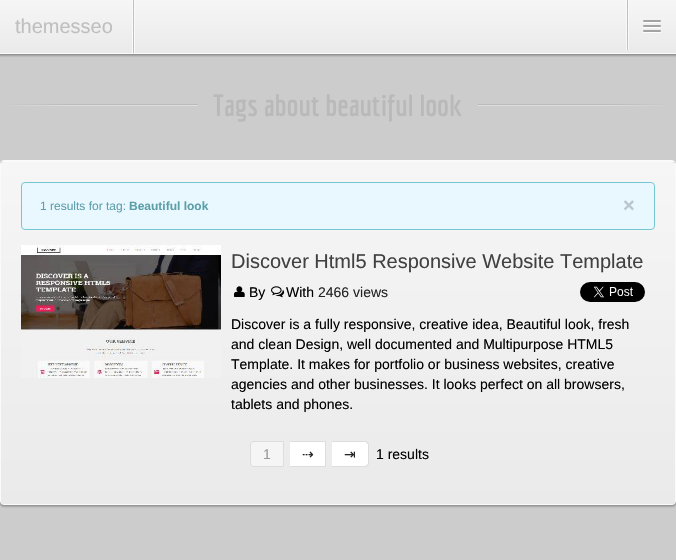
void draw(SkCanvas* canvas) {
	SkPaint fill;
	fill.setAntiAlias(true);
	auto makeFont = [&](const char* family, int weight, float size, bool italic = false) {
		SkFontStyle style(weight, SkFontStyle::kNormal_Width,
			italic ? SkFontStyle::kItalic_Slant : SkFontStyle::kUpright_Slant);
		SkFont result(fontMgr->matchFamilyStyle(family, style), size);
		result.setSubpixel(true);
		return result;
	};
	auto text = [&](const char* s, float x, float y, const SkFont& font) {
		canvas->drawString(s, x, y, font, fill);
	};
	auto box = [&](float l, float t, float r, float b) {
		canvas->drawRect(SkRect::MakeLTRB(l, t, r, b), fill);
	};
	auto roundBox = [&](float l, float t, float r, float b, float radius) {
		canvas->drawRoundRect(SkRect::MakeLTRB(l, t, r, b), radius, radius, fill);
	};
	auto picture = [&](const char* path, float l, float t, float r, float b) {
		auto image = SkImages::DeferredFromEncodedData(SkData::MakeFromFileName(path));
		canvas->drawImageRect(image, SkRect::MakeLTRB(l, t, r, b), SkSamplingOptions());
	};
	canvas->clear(0xFFCCCCCC);
	fill.setColor(0x0D000000);
	fill.setMaskFilter(SkMaskFilter::MakeBlur(kNormal_SkBlurStyle, 0.5f));
	canvas->drawRect(SkRect::MakeLTRB(0, 3, 676, 57), fill);
	fill.setMaskFilter(nullptr);
	fill.setColor(0x1A000000);
	fill.setMaskFilter(SkMaskFilter::MakeBlur(kNormal_SkBlurStyle, 0.5f));
	canvas->drawRect(SkRect::MakeLTRB(0, 2, 676, 56), fill);
	fill.setMaskFilter(nullptr);
	fill.setColor(0x26000000);
	fill.setMaskFilter(SkMaskFilter::MakeBlur(kNormal_SkBlurStyle, 0.5f));
	canvas->drawRect(SkRect::MakeLTRB(0, 1, 676, 55), fill);
	fill.setMaskFilter(nullptr);
	{
		const SkColor colors[] = {0xFFF6F6F6, 0xFFEAEAEA};
		const float stops[] = {0, 1};
		const SkPoint ends[] = {{338, 0}, {338, 53}};
		fill.setShader(SkGradientShader::MakeLinear(ends, colors, stops, 2, SkTileMode::kClamp));
		fill.setAlpha(255);
	}
	box(0, 0, 676, 53);
	fill.setShader(nullptr);
	fill.setColor(0xFFFAFAFA);
	box(0, 53, 676, 54);
	fill.setColor(0xFFBFBFBF);
	box(133, 0, 134, 53);
	fill.setColor(0xFFFAFAFA);
	box(132, 0, 133, 53);
	box(134, 0, 135, 53);
	fill.setColor(0xFFBFBFBF);
	box(627, 0, 628, 50);
	fill.setColor(0xFFFAFAFA);
	box(626, 0, 627, 50);
	box(628, 0, 629, 50);
	fill.setColor(0xFFFFFFFF);
	canvas->drawPath(SkPathBuilder().moveTo(643, 21.5f).cubicTo(642, 23.5f, 646.5f, 23, 646.5f, 23).lineTo(657.5f, 23).cubicTo(657.5f, 23, 662, 23.5f, 661, 21.5f).cubicTo(660, 22.5f, 653.5f, 22, 652, 22).cubicTo(650.5f, 22, 644, 22.5f, 643, 21.5f).close().detach(), fill);
	fill.setColor(0xFFA3A3A3);
	roundBox(643, 20, 661, 22, 1);
	fill.setColor(0xFFFFFFFF);
	canvas->drawPath(SkPathBuilder().moveTo(643, 26.5f).cubicTo(642, 28.5f, 646.5f, 28, 646.5f, 28).lineTo(657.5f, 28).cubicTo(657.5f, 28, 662, 28.5f, 661, 26.5f).cubicTo(660, 27.5f, 653.5f, 27, 652, 27).cubicTo(650.5f, 27, 644, 27.5f, 643, 26.5f).close().detach(), fill);
	fill.setColor(0xFFA3A3A3);
	roundBox(643, 25, 661, 27, 1);
	fill.setColor(0xFFFFFFFF);
	canvas->drawPath(SkPathBuilder().moveTo(643, 31.5f).cubicTo(642, 33.5f, 646.5f, 33, 646.5f, 33).lineTo(657.5f, 33).cubicTo(657.5f, 33, 662, 33.5f, 661, 31.5f).cubicTo(660, 32.5f, 653.5f, 32, 652, 32).cubicTo(650.5f, 32, 644, 32.5f, 643, 31.5f).close().detach(), fill);
	fill.setColor(0xFFA3A3A3);
	roundBox(643, 30, 661, 32, 1);
	{
		const SkColor colors[] = {0xFFCCCCCC, 0xFFBBBBBB, 0xFFBBBBBB, 0xFFCCCCCC};
		const float stops[] = {0, 0.1f, 0.9f, 1};
		const SkPoint ends[] = {{0, 105}, {676, 104}};
		fill.setShader(SkGradientShader::MakeLinear(ends, colors, stops, 4, SkTileMode::kClamp));
		fill.setAlpha(255);
	}
	box(10, 104, 666, 105);
	{
		const SkColor colors[] = {0xFFCCCCCC, 0xFFDDDDDD, 0xFFDDDDDD, 0xFFCCCCCC};
		const float stops[] = {0, 0.1f, 0.9f, 1};
		const SkPoint ends[] = {{0, 106}, {676, 105}};
		fill.setShader(SkGradientShader::MakeLinear(ends, colors, stops, 4, SkTileMode::kClamp));
		fill.setAlpha(255);
	}
	box(10, 105, 666, 106);
	fill.setShader(nullptr);
	fill.setColor(0xFFCCCCCC);
	box(198, 104, 478, 106);
	fill.setColor(0x0D000000);
	fill.setMaskFilter(SkMaskFilter::MakeBlur(kNormal_SkBlurStyle, 0.5f));
	canvas->drawRoundRect(SkRect::MakeLTRB(0, 163, 676, 508), 4, 4, fill);
	fill.setMaskFilter(nullptr);
	canvas->save();
	canvas->clipPath(SkPathBuilder(SkPathFillType::kEvenOdd).moveTo(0, 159).lineTo(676, 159).lineTo(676, 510).lineTo(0, 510).close().moveTo(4, 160).lineTo(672, 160).cubicTo(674, 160, 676, 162, 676, 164).lineTo(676, 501).cubicTo(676, 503, 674, 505, 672, 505).lineTo(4, 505).cubicTo(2, 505, 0, 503, 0, 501).lineTo(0, 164).cubicTo(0, 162, 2, 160, 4, 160).close().detach(), true);
	fill.setColor(0x1A000000);
	fill.setMaskFilter(SkMaskFilter::MakeBlur(kNormal_SkBlurStyle, 0.5f));
	canvas->drawRoundRect(SkRect::MakeLTRB(0, 162, 676, 507), 4, 4, fill);
	fill.setMaskFilter(nullptr);
	canvas->restore();
	canvas->save();
	canvas->clipPath(SkPathBuilder(SkPathFillType::kEvenOdd).moveTo(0, 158).lineTo(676, 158).lineTo(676, 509).lineTo(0, 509).close().moveTo(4, 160).lineTo(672, 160).cubicTo(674, 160, 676, 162, 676, 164).lineTo(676, 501).cubicTo(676, 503, 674, 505, 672, 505).lineTo(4, 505).cubicTo(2, 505, 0, 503, 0, 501).lineTo(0, 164).cubicTo(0, 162, 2, 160, 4, 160).close().detach(), true);
	fill.setColor(0x26000000);
	fill.setMaskFilter(SkMaskFilter::MakeBlur(kNormal_SkBlurStyle, 0.5f));
	canvas->drawRoundRect(SkRect::MakeLTRB(0, 161, 676, 506), 4, 4, fill);
	fill.setMaskFilter(nullptr);
	canvas->restore();
	{
		const SkColor colors[] = {0xFFF6F6F6, 0xFFEAEAEA};
		const float stops[] = {0, 1};
		const SkPoint ends[] = {{338, 162}, {338, 504}};
		fill.setShader(SkGradientShader::MakeLinear(ends, colors, stops, 2, SkTileMode::kClamp));
		fill.setAlpha(255);
	}
	canvas->drawPath(SkPathBuilder().moveTo(4, 162).lineTo(672, 162).cubicTo(674, 162, 675, 163, 675, 164).lineTo(675, 501).cubicTo(675, 503, 674, 504, 672, 504).lineTo(4, 504).cubicTo(2, 504, 1, 503, 1, 501).lineTo(1, 164).cubicTo(1, 163, 2, 162, 4, 162).close().detach(), fill);
	fill.setStyle(SkPaint::kStroke_Style);
	fill.setStrokeWidth(1);
	fill.setShader(nullptr);
	fill.setColor(0xFFFAFAFA);
	canvas->drawRoundRect(SkRect::MakeLTRB(0.5f, 160.5f, 675.5f, 504.5f), 3.5f, 3.5f, fill);
	fill.setStyle(SkPaint::kFill_Style);
	box(2, 161, 674, 162);
	fill.setColor(0xFFE9F8FF);
	canvas->drawRoundRect(SkRect::MakeLTRB(21.5f, 182.5f, 654.5f, 229.5f), 3.5f, 3.5f, fill);
	fill.setStyle(SkPaint::kStroke_Style);
	fill.setColor(0xFF75C7D3);
	canvas->drawRoundRect(SkRect::MakeLTRB(21.5f, 182.5f, 654.5f, 229.5f), 3.5f, 3.5f, fill);
	picture("image0.png", 21, 245, 221, 378);
	picture("image1.png", 234, 286, 245, 297);
	picture("image2.png", 271, 286, 285, 298);
	picture("image3.png", 580, 282, 645, 302);
	fill.setStyle(SkPaint::kFill_Style);
	fill.setColor(0xFFF5F5F5);
	canvas->drawPath(SkPathBuilder().moveTo(254, 441.5f).lineTo(283.5f, 441.5f).lineTo(283.5f, 466.5f).lineTo(254, 466.5f).cubicTo(252, 466.5f, 250.5f, 465, 250.5f, 463).lineTo(250.5f, 445).cubicTo(250.5f, 443, 252, 441.5f, 254, 441.5f).close().detach(), fill);
	fill.setStyle(SkPaint::kStroke_Style);
	fill.setColor(0xFFDDDDDD);
	canvas->drawPath(SkPathBuilder().moveTo(254, 441.5f).lineTo(283.5f, 441.5f).lineTo(283.5f, 466.5f).lineTo(254, 466.5f).cubicTo(252, 466.5f, 250.5f, 465, 250.5f, 463).lineTo(250.5f, 445).cubicTo(250.5f, 443, 252, 441.5f, 254, 441.5f).close().detach(), fill);
	fill.setStyle(SkPaint::kFill_Style);
	fill.setColor(0xFFFFFFFF);
	box(290, 442, 325, 466);
	fill.setColor(0xFFDDDDDD);
	box(290, 441, 326, 442);
	box(325, 441, 326, 467);
	box(290, 466, 326, 467);
	fill.setColor(0xFFFFFFFF);
	canvas->drawPath(SkPathBuilder().moveTo(332, 442).lineTo(365, 442).cubicTo(366.5f, 442, 368, 443.5f, 368, 445).lineTo(368, 463).cubicTo(368, 464.5f, 366.5f, 466, 365, 466).lineTo(332, 466).close().detach(), fill);
	fill.setColor(0xFFDDDDDD);
	canvas->drawPath(SkPathBuilder(SkPathFillType::kEvenOdd).moveTo(332, 441).lineTo(365, 441).cubicTo(367, 441, 369, 443, 369, 445).lineTo(369, 463).cubicTo(369, 465, 367, 467, 365, 467).lineTo(332, 467).close().moveTo(332, 442).lineTo(365, 442).cubicTo(366.5f, 442, 368, 443.5f, 368, 445).lineTo(368, 463).cubicTo(368, 464.5f, 366.5f, 466, 365, 466).lineTo(332, 466).close().detach(), fill);
	auto font1 = makeFont("Liberation Sans", 400, 20);
	fill.setColor(0xFFBFBFBF);
	text("themesseo", 15, 33, font1);
	auto font2 = makeFont("Economica", 700, 30);
	fill.setColor(0xFFB9B9B9);
	text("Tags about beautiful look", 213, 116, font2);
	auto font3 = makeFont("Liberation Sans", 400, 12);
	fill.setColor(0xFF5D9FA9);
	text("1 results for tag:", 40, 210, font3);
	auto font4 = makeFont("Liberation Sans", 700, 12);
	text("Beautiful look", 129, 210, font4);
	auto font5 = makeFont("Liberation Sans", 700, 20);
	fill.setColor(0xFFBAC6CC);
	text("×", 623, 212, font5);
	fill.setColor(0xFF414141);
	text("Discover Html5 Responsive Website Template", 231, 268, font1);
	auto font6 = makeFont("Liberation Sans", 400, 14);
	fill.setColor(0xFF000000);
	text("By", 249, 297, font6);
	text("With", 286, 297, font6);
	fill.setColor(0xFF242424);
	text("2466 views", 318, 297, font6);
	fill.setColor(0xFF000000);
	text("Discover is a fully responsive, creative idea, Beautiful look, fresh", 231, 329, font6);
	text("and clean Design, well documented and Multipurpose HTML5", 231, 349, font6);
	text("Template. It makes for portfolio or business websites, creative", 231, 369, font6);
	text("agencies and other businesses. It looks perfect on all browsers,", 231, 389, font6);
	text("tablets and phones.", 231, 409, font6);
	fill.setColor(0xFF999999);
	text("1", 263, 459, font6);
	auto font7 = makeFont("DejaVu Sans", 400, 14);
	fill.setColor(0xFF242424);
	text("⇢", 302, 459, font7);
	text("⇥", 344, 459, font7);
	fill.setColor(0xFF000000);
	text("1 results", 376, 459, font6);
}
